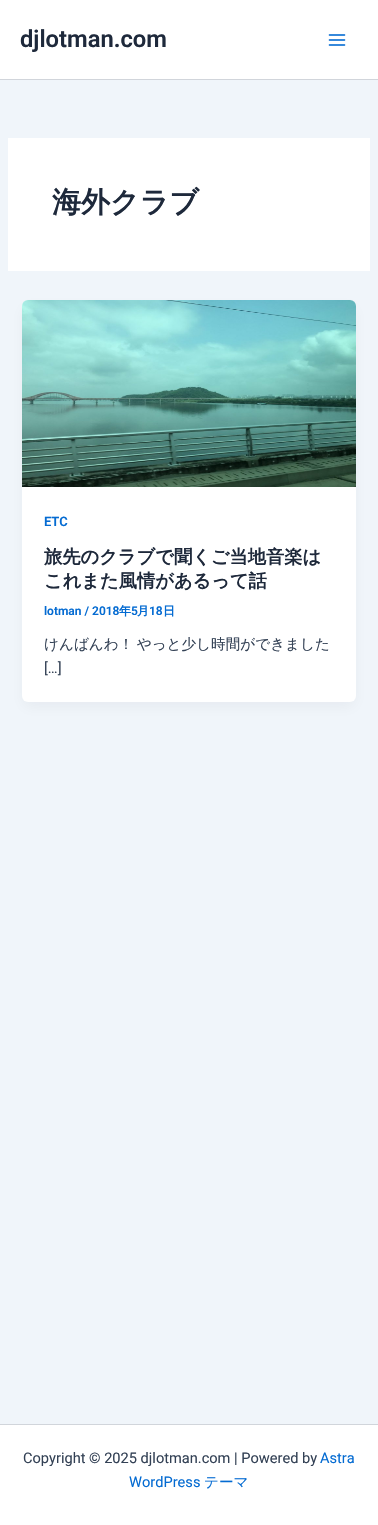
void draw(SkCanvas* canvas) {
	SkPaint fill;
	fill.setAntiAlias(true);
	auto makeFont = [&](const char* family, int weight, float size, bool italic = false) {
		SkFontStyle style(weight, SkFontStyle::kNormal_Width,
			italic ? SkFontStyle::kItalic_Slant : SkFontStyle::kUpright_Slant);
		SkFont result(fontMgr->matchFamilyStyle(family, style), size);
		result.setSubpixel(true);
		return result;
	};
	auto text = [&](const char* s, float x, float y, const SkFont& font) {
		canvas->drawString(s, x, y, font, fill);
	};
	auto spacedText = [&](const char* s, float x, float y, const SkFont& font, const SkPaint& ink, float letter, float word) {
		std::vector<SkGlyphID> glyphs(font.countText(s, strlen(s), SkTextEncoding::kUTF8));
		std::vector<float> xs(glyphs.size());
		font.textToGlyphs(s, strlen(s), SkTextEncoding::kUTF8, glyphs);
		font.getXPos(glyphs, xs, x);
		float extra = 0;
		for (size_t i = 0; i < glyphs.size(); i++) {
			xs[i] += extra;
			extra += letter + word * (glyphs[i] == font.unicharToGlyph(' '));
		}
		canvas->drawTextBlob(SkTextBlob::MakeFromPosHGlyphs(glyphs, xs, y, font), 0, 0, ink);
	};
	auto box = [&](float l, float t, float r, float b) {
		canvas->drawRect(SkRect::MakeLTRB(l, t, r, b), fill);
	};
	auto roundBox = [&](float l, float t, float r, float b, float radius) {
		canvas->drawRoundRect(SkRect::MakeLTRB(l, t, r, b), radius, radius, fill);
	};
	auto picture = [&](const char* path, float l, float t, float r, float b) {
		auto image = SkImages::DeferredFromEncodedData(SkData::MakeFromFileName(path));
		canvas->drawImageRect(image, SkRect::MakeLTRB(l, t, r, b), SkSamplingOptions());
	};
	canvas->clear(0xFFF0F5FA);
	fill.setColor(0xFFFFFFFF);
	box(0, 0, 378, 79);
	fill.setColor(0xFFD1D5DB);
	box(0, 79, 378, 80);
	picture("image0.png", 328, 34, 346, 46);
	fill.setColor(0xFFFFFFFF);
	box(8, 138, 370, 271);
	fill.setColor(0x0D101828);
	fill.setMaskFilter(SkMaskFilter::MakeBlur(kNormal_SkBlurStyle, 7.5f));
	canvas->drawRoundRect(SkRect::MakeLTRB(24, 308, 354, 706), 4, 4, fill);
	fill.setMaskFilter(nullptr);
	fill.setColor(0xFFFFFFFF);
	roundBox(22, 300, 356, 702, 6);
	picture("image1.png", 22, 300, 356, 487);
	box(0, 1425, 378, 1525);
	fill.setColor(0xFFD1D5DB);
	box(0, 1424, 378, 1425);
	auto font1 = makeFont("Roboto", 600, 23.75f);
	fill.setColor(0xFF1E293B);
	text("djlotman.com", 20, 47, font1);
	auto font2 = makeFont("WenQuanYi Zen Hei", 700, 29);
	text("海外クラブ", 52, 212, font2);
	auto font3 = makeFont("Roboto", 600, 13);
	fill.setColor(0xFF046BD2);
	text("ETC", 44, 526, font3);
	auto font4 = makeFont("WenQuanYi Zen Hei", 700, 18.25f);
	fill.setColor(0xFF1E293B);
	text("旅先のクラブで聞くご当地音楽は", 44, 563, font4);
	text("これまた風情があるって話", 44, 587, font4);
	auto font5 = makeFont("Roboto", 600, 12);
	fill.setColor(0xFF046BD2);
	text("lotman / 2018", 44, 615, font5);
	auto font6 = makeFont("WenQuanYi Zen Hei", 700, 12);
	text("年", 119, 615, font6);
	text("5", 131, 615, font5);
	text("月", 137, 615, font6);
	text("18", 149, 615, font5);
	text("日", 163, 615, font6);
	auto font7 = makeFont("WenQuanYi Zen Hei", 500, 14.6f);
	fill.setColor(0xFF334155);
	spacedText("けんばんわ！ やっと少し時間ができました", 44, 649, font7, fill, 0, -1);
	auto font8 = makeFont("Roboto", 400, 14.6f);
	text("[…]", 44, 673, font8);
	text("Copyright © 2025 djlotman.com | Powered by", 23, 1463, font8);
	fill.setColor(0xFF046BD2);
	text("Astra", 320, 1463, font8);
	text("WordPress", 129, 1487, font8);
	text("テーマ", 204, 1487, font7);
}
